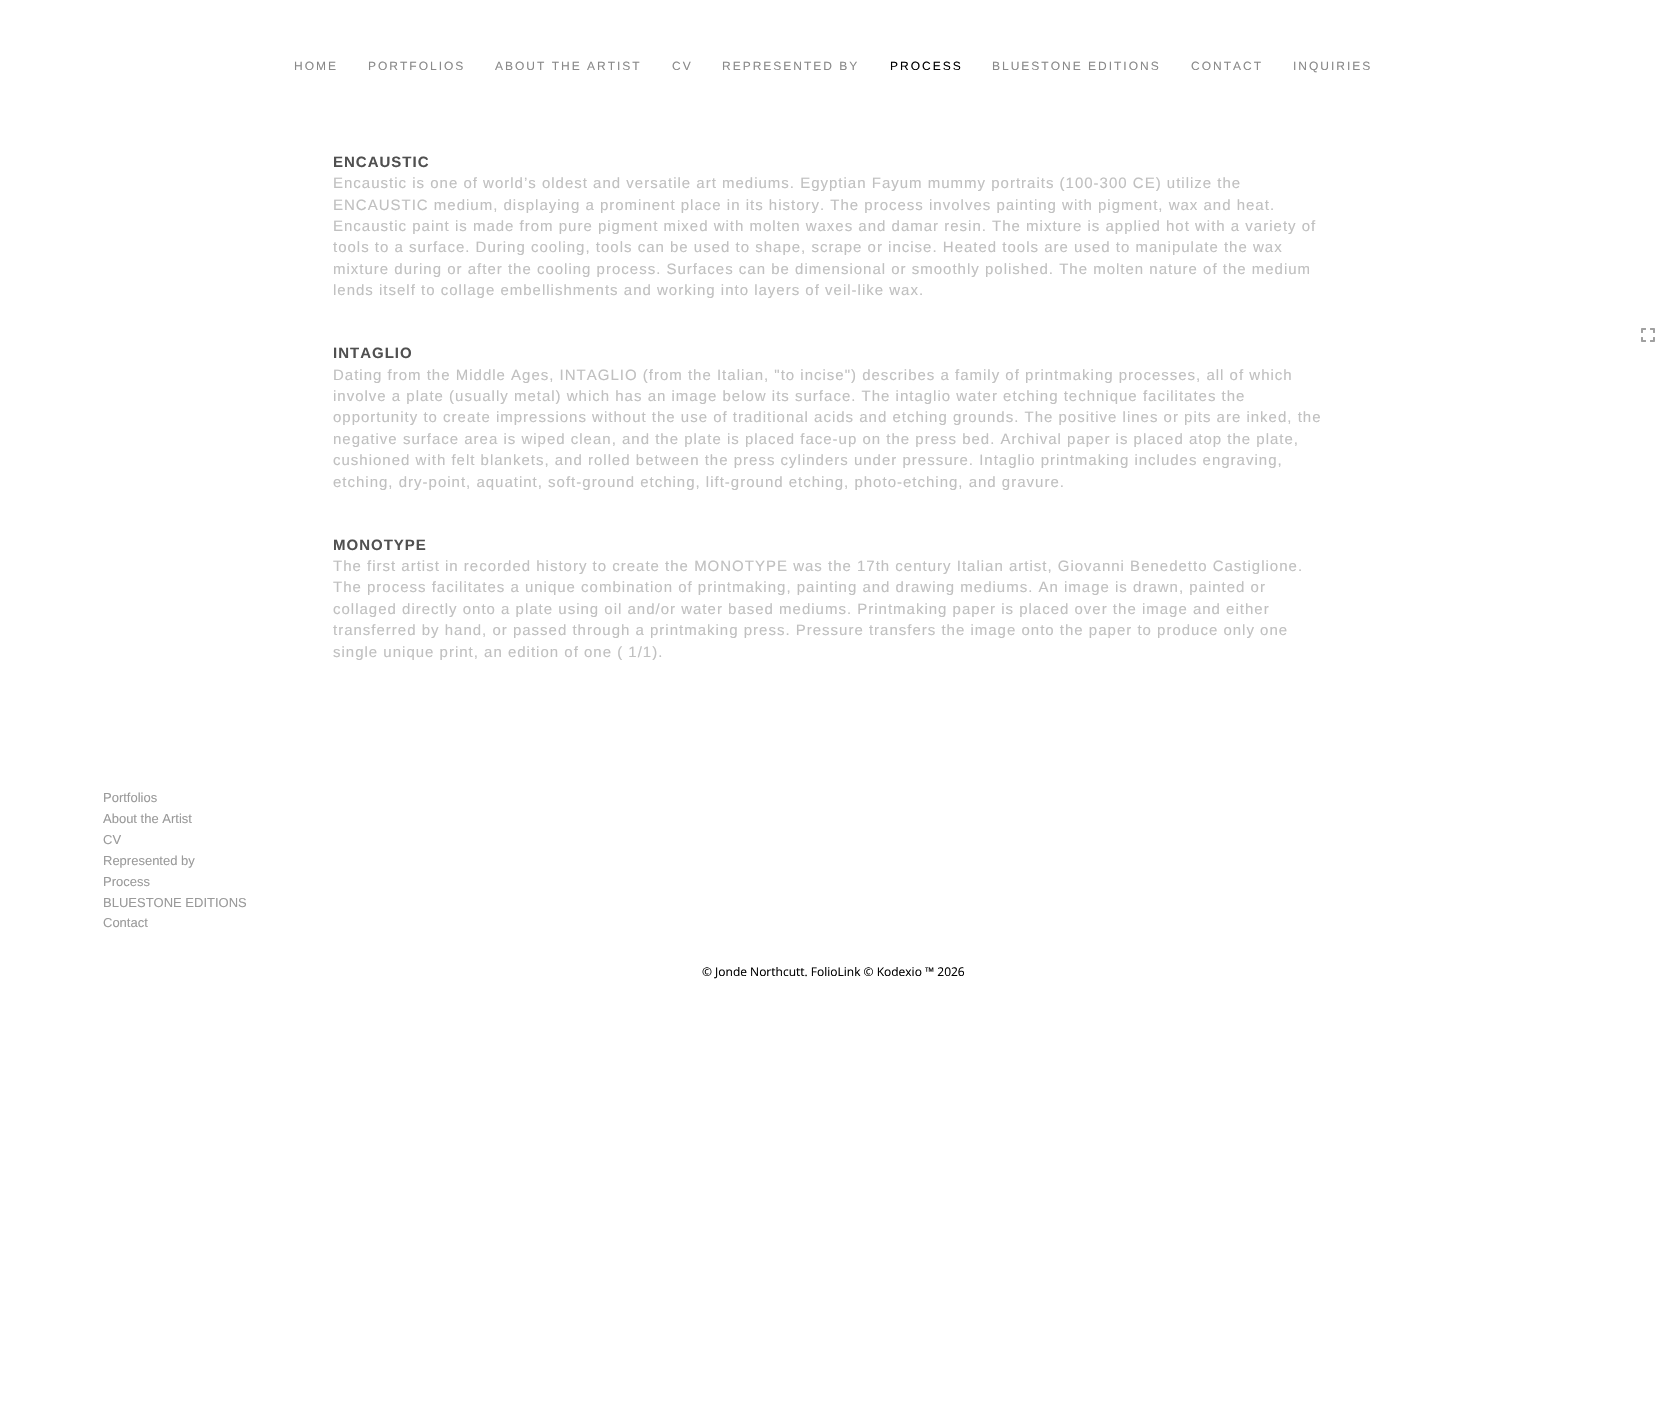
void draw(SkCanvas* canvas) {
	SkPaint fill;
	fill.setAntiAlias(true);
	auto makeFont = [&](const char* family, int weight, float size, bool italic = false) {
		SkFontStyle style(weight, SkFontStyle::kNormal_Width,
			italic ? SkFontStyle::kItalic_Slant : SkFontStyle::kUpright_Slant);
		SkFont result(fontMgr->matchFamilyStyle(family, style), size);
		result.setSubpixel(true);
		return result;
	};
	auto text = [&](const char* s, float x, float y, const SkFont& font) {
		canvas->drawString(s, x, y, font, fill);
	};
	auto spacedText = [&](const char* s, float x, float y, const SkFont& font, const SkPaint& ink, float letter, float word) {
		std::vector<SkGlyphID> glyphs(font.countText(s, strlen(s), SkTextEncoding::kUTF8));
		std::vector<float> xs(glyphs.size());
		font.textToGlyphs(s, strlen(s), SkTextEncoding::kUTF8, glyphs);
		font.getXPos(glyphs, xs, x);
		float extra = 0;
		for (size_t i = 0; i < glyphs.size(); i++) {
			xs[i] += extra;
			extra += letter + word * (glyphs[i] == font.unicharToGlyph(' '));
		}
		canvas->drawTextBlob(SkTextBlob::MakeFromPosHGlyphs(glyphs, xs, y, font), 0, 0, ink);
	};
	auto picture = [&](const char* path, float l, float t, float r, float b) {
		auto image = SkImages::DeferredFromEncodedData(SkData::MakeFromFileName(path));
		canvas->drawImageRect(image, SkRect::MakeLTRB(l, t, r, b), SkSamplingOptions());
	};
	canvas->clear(0xFFFFFFFF);
	picture("image0.png", 1641, 328, 1655, 342);
	auto font1 = makeFont("Liberation Sans", 400, 12);
	fill.setColor(0xFF898989);
	spacedText("HOME", 294, 70, font1, fill, 2, 0);
	spacedText("PORTFOLIOS", 368, 70, font1, fill, 2, 0);
	spacedText("ABOUT THE ARTIST", 495, 70, font1, fill, 2, 0);
	spacedText("CV", 672, 70, font1, fill, 2, 0);
	spacedText("REPRESENTED BY", 722, 70, font1, fill, 2, 0);
	fill.setColor(0xFF000000);
	spacedText("PROCESS", 890, 70, font1, fill, 2, 0);
	fill.setColor(0xFF898989);
	spacedText("BLUESTONE EDITIONS", 992, 70, font1, fill, 2, 0);
	spacedText("CONTACT", 1191, 70, font1, fill, 2, 0);
	spacedText("INQUIRIES", 1293, 70, font1, fill, 2, 0);
	auto font2 = makeFont("Liberation Sans", 700, 15);
	fill.setColor(0xFF505050);
	spacedText("ENCAUSTIC", 333, 167, font2, fill, 1, 0);
	auto font3 = makeFont("Liberation Sans", 400, 15);
	fill.setColor(0xFFC0C0C0);
	spacedText("Encaustic is one of world’s oldest and versatile art mediums. Egyptian Fayum mummy portraits (100-300 CE) utilize the", 333, 188, font3, fill, 1, 0);
	spacedText("ENCAUSTIC medium, displaying a prominent place in its history. The process involves painting with pigment, wax and heat.", 333, 210, font3, fill, 1, 0);
	spacedText("Encaustic paint is made from pure pigment mixed with molten waxes and damar resin. The mixture is applied hot with a variety of", 333, 231, font3, fill, 1, 0);
	spacedText("tools to a surface. During cooling, tools can be used to shape, scrape or incise. Heated tools are used to manipulate the wax", 333, 252, font3, fill, 1, 0);
	spacedText("mixture during or after the cooling process. Surfaces can be dimensional or smoothly polished. The molten nature of the medium", 333, 274, font3, fill, 1, 0);
	spacedText("lends itself to collage embellishments and working into layers of veil-like wax.", 333, 295, font3, fill, 1, 0);
	fill.setColor(0xFF505050);
	spacedText("INTAGLIO", 333, 358, font2, fill, 1, 0);
	fill.setColor(0xFFC0C0C0);
	spacedText("Dating from the Middle Ages, INTAGLIO (from the Italian, \"to incise\") describes a family of printmaking processes, all of which", 333, 380, font3, fill, 1, 0);
	spacedText("involve a plate (usually metal) which has an image below its surface. The intaglio water etching technique facilitates the", 333, 401, font3, fill, 1, 0);
	spacedText("opportunity to create impressions without the use of traditional acids and etching grounds. The positive lines or pits are inked, the", 333, 422, font3, fill, 1, 0);
	spacedText("negative surface area is wiped clean, and the plate is placed face-up on the press bed. Archival paper is placed atop the plate,", 333, 444, font3, fill, 1, 0);
	spacedText("cushioned with felt blankets, and rolled between the press cylinders under pressure. Intaglio printmaking includes engraving,", 333, 465, font3, fill, 1, 0);
	spacedText("etching, dry-point, aquatint, soft-ground etching, lift-ground etching, photo-etching, and gravure.", 333, 487, font3, fill, 1, 0);
	fill.setColor(0xFF505050);
	spacedText("MONOTYPE", 333, 550, font2, fill, 1, 0);
	fill.setColor(0xFFC0C0C0);
	spacedText("The first artist in recorded history to create the MONOTYPE was the 17th century Italian artist, Giovanni Benedetto Castiglione.", 333, 571, font3, fill, 1, 0);
	spacedText("The process facilitates a unique combination of printmaking, painting and drawing mediums. An image is drawn, painted or", 333, 592, font3, fill, 1, 0);
	spacedText("collaged directly onto a plate using oil and/or water based mediums. Printmaking paper is placed over the image and either", 333, 614, font3, fill, 1, 0);
	spacedText("transferred by hand, or passed through a printmaking press. Pressure transfers the image onto the paper to produce only one", 333, 635, font3, fill, 1, 0);
	spacedText("single unique print, an edition of one ( 1/1).", 333, 657, font3, fill, 1, 0);
	auto font4 = makeFont("Liberation Sans", 400, 13);
	fill.setColor(0xFF9A9A9A);
	text("Portfolios", 103, 802, font4);
	text("About the Artist", 103, 823, font4);
	text("CV", 103, 844, font4);
	text("Represented by", 103, 865, font4);
	text("Process", 103, 886, font4);
	text("BLUESTONE EDITIONS", 103, 907, font4);
	text("Contact", 103, 927, font4);
	auto font5 = makeFont("Open Sans", 400, 12);
	fill.setColor(0xFF000000);
	text("© Jonde Northcutt. FolioLink © Kodexio ™ 2026", 702, 976, font5);
}
